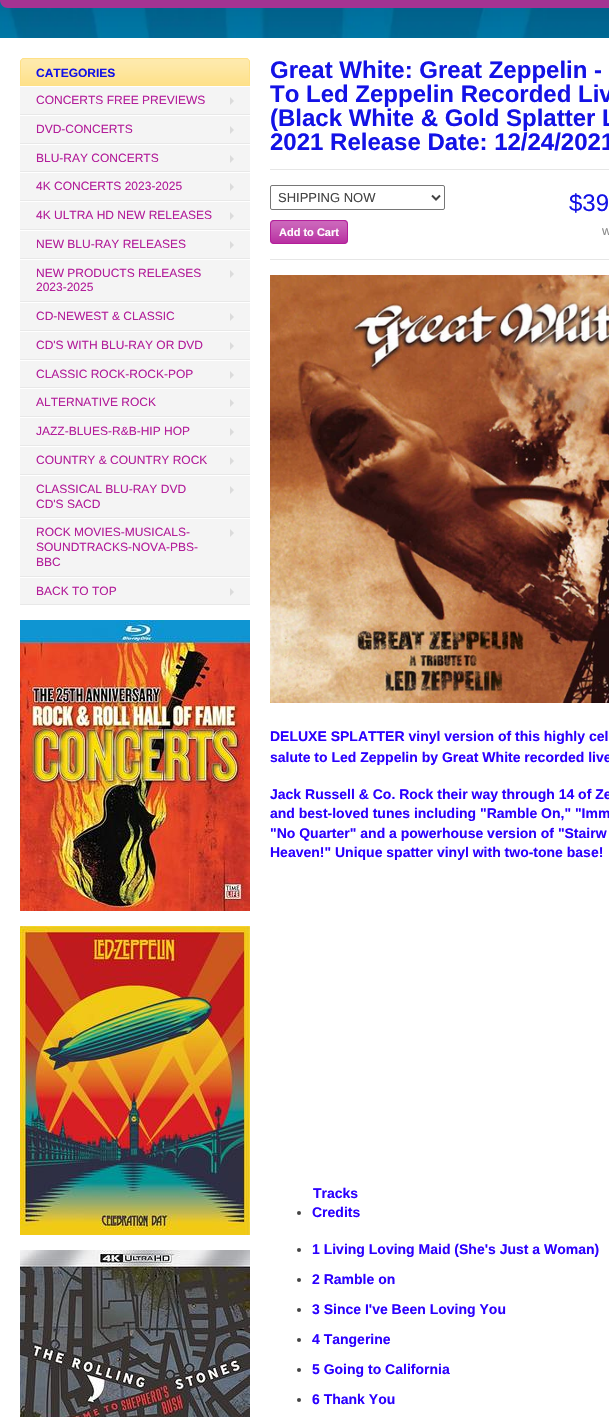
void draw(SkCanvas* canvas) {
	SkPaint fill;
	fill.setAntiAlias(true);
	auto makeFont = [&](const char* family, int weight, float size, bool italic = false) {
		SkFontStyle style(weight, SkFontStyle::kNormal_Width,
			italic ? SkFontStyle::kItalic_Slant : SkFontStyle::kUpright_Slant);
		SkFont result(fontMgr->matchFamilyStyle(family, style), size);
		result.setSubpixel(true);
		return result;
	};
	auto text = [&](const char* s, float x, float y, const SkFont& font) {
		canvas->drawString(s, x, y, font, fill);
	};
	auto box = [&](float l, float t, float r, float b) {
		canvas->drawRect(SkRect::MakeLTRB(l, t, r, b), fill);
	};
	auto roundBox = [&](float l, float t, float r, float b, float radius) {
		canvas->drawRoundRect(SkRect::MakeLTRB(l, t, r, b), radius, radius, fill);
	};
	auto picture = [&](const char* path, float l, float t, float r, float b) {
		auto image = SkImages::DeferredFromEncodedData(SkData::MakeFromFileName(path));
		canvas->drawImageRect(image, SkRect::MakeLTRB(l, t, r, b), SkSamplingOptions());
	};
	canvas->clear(0xFFFFFFFF);
	picture("image0.png", 0, 0, 609, 38);
	fill.setColor(0xFFA43392);
	canvas->drawPath(SkPathBuilder().moveTo(0, -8).lineTo(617, -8).lineTo(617, 0).cubicTo(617, 4.5f, 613.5f, 8, 609, 8).lineTo(8, 8).cubicTo(3.5f, 8, 0, 4.5f, 0, 0).close().detach(), fill);
	fill.setColor(0xFFFEE086);
	canvas->drawPath(SkPathBuilder().moveTo(24, 58).lineTo(246, 58).cubicTo(248, 58, 250, 60, 250, 62).lineTo(250, 86).lineTo(20, 86).lineTo(20, 62).cubicTo(20, 60, 22, 58, 24, 58).close().detach(), fill);
	picture("image1.png", 20, 59, 250, 85);
	fill.setStyle(SkPaint::kStroke_Style);
	fill.setStrokeWidth(1);
	canvas->drawPath(SkPathBuilder().moveTo(24, 58.5f).lineTo(246, 58.5f).cubicTo(248, 58.5f, 249.5f, 60, 249.5f, 62).lineTo(249.5f, 85.5f).lineTo(20.5f, 85.5f).lineTo(20.5f, 62).cubicTo(20.5f, 60, 22, 58.5f, 24, 58.5f).close().detach(), fill);
	fill.setStyle(SkPaint::kFill_Style);
	fill.setColor(0xFFF4F4F4);
	box(20, 87, 250, 114);
	fill.setColor(0xFFE8E8E8);
	box(20, 114, 250, 115);
	fill.setColor(0xFFDBDBDB);
	canvas->drawPath(SkPathBuilder().moveTo(230, 105).lineTo(230, 97).lineTo(234, 101).close().detach(), fill);
	fill.setColor(0xFFF4F4F4);
	box(20, 116, 250, 143);
	fill.setColor(0xFFE8E8E8);
	box(20, 143, 250, 144);
	fill.setColor(0xFFDBDBDB);
	canvas->drawPath(SkPathBuilder().moveTo(230, 134).lineTo(230, 126).lineTo(234, 130).close().detach(), fill);
	fill.setColor(0xFFF4F4F4);
	box(20, 145, 250, 171);
	fill.setColor(0xFFE8E8E8);
	box(20, 171, 250, 172);
	fill.setColor(0xFFDBDBDB);
	canvas->drawPath(SkPathBuilder().moveTo(230, 163).lineTo(230, 155).lineTo(234, 159).close().detach(), fill);
	fill.setColor(0xFFF4F4F4);
	box(20, 173, 250, 200);
	fill.setColor(0xFFE8E8E8);
	box(20, 200, 250, 201);
	fill.setColor(0xFFDBDBDB);
	canvas->drawPath(SkPathBuilder().moveTo(230, 191).lineTo(230, 183).lineTo(234, 187).close().detach(), fill);
	fill.setColor(0xFFF4F4F4);
	box(20, 202, 250, 229);
	fill.setColor(0xFFE8E8E8);
	box(20, 229, 250, 230);
	fill.setColor(0xFFDBDBDB);
	canvas->drawPath(SkPathBuilder().moveTo(230, 220).lineTo(230, 212).lineTo(234, 216).close().detach(), fill);
	fill.setColor(0xFFF4F4F4);
	box(20, 231, 250, 258);
	fill.setColor(0xFFE8E8E8);
	box(20, 258, 250, 259);
	fill.setColor(0xFFDBDBDB);
	canvas->drawPath(SkPathBuilder().moveTo(230, 249).lineTo(230, 241).lineTo(234, 245).close().detach(), fill);
	fill.setColor(0xFFF4F4F4);
	box(20, 260, 250, 301);
	fill.setColor(0xFFE8E8E8);
	box(20, 301, 250, 302);
	fill.setColor(0xFFDBDBDB);
	canvas->drawPath(SkPathBuilder().moveTo(230, 278).lineTo(230, 270).lineTo(234, 274).close().detach(), fill);
	fill.setColor(0xFFF4F4F4);
	box(20, 303, 250, 330);
	fill.setColor(0xFFE8E8E8);
	box(20, 330, 250, 331);
	fill.setColor(0xFFDBDBDB);
	canvas->drawPath(SkPathBuilder().moveTo(230, 321).lineTo(230, 313).lineTo(234, 317).close().detach(), fill);
	fill.setColor(0xFFF4F4F4);
	box(20, 332, 250, 359);
	fill.setColor(0xFFE8E8E8);
	box(20, 359, 250, 360);
	fill.setColor(0xFFDBDBDB);
	canvas->drawPath(SkPathBuilder().moveTo(230, 350).lineTo(230, 342).lineTo(234, 346).close().detach(), fill);
	fill.setColor(0xFFF4F4F4);
	box(20, 361, 250, 387);
	fill.setColor(0xFFE8E8E8);
	box(20, 387, 250, 388);
	fill.setColor(0xFFDBDBDB);
	canvas->drawPath(SkPathBuilder().moveTo(230, 379).lineTo(230, 371).lineTo(234, 375).close().detach(), fill);
	fill.setColor(0xFFF4F4F4);
	box(20, 389, 250, 416);
	fill.setColor(0xFFE8E8E8);
	box(20, 416, 250, 417);
	fill.setColor(0xFFDBDBDB);
	canvas->drawPath(SkPathBuilder().moveTo(230, 407).lineTo(230, 399).lineTo(234, 403).close().detach(), fill);
	fill.setColor(0xFFF4F4F4);
	box(20, 418, 250, 445);
	fill.setColor(0xFFE8E8E8);
	box(20, 445, 250, 446);
	fill.setColor(0xFFDBDBDB);
	canvas->drawPath(SkPathBuilder().moveTo(230, 436).lineTo(230, 428).lineTo(234, 432).close().detach(), fill);
	fill.setColor(0xFFF4F4F4);
	box(20, 447, 250, 474);
	fill.setColor(0xFFE8E8E8);
	box(20, 474, 250, 475);
	fill.setColor(0xFFDBDBDB);
	canvas->drawPath(SkPathBuilder().moveTo(230, 465).lineTo(230, 457).lineTo(234, 461).close().detach(), fill);
	fill.setColor(0xFFF4F4F4);
	box(20, 476, 250, 517);
	fill.setColor(0xFFE8E8E8);
	box(20, 517, 250, 518);
	fill.setColor(0xFFDBDBDB);
	canvas->drawPath(SkPathBuilder().moveTo(230, 494).lineTo(230, 486).lineTo(234, 490).close().detach(), fill);
	fill.setColor(0xFFF4F4F4);
	box(20, 519, 250, 576);
	fill.setColor(0xFFE8E8E8);
	box(20, 576, 250, 577);
	fill.setColor(0xFFDBDBDB);
	canvas->drawPath(SkPathBuilder().moveTo(230, 537).lineTo(230, 529).lineTo(234, 533).close().detach(), fill);
	fill.setColor(0xFFF4F4F4);
	box(20, 578, 250, 604);
	fill.setColor(0xFFE8E8E8);
	box(20, 604, 250, 605);
	fill.setColor(0xFFDBDBDB);
	canvas->drawPath(SkPathBuilder().moveTo(230, 596).lineTo(230, 588).lineTo(234, 592).close().detach(), fill);
	picture("image2.png", 20, 620, 250, 911);
	picture("image3.png", 20, 926, 250, 1235);
	picture("image4.png", 20, 1250, 250, 1417);
	fill.setColor(0xFFE6E6E6);
	box(270, 169, 609, 170);
	box(270, 259, 609, 260);
	fill.setStyle(SkPaint::kStroke_Style);
	fill.setColor(0xFF767676);
	canvas->drawRoundRect(SkRect::MakeLTRB(270.5f, 185.5f, 444.5f, 209.5f), 1.5f, 1.5f, fill);
	fill.setStrokeWidth(2);
	fill.setColor(0xFF444444);
	canvas->drawPath(SkPathBuilder().moveTo(432, 195.5f).lineTo(436, 199.5f).lineTo(440, 195.5f).detach(), fill);
	fill.setStyle(SkPaint::kFill_Style);
	fill.setColor(0xFFB31E9A);
	roundBox(270, 220, 348, 244, 4);
	picture("image5.png", 270, 221, 348, 244);
	fill.setStyle(SkPaint::kStroke_Style);
	fill.setStrokeWidth(1);
	canvas->drawRoundRect(SkRect::MakeLTRB(270.5f, 220.5f, 347.5f, 243.5f), 3.5f, 3.5f, fill);
	picture("image6.png", 270, 275, 609, 703);
	fill.setStyle(SkPaint::kFill_Style);
	fill.setColor(0xFF444444);
	canvas->drawCircle(299, 1213, 2, fill);
	canvas->drawCircle(299, 1250, 2, fill);
	canvas->drawCircle(299, 1280, 2, fill);
	canvas->drawCircle(299, 1310, 2, fill);
	canvas->drawCircle(299, 1340, 2, fill);
	canvas->drawCircle(299, 1370, 2, fill);
	canvas->drawCircle(299, 1400, 2, fill);
	auto font1 = makeFont("Liberation Sans", 700, 12);
	fill.setColor(0xFF1312E6);
	text("CATEGORIES", 36, 77, font1);
	auto font2 = makeFont("Liberation Sans", 400, 12);
	fill.setColor(0xFFB31E9A);
	text("CONCERTS FREE PREVIEWS", 36, 104, font2);
	text("DVD-CONCERTS", 36, 133, font2);
	text("BLU-RAY CONCERTS", 36, 162, font2);
	text("4K CONCERTS 2023-2025", 36, 190, font2);
	text("4K ULTRA HD NEW RELEASES", 36, 219, font2);
	text("NEW BLU-RAY RELEASES", 36, 248, font2);
	text("NEW PRODUCTS RELEASES", 36, 277, font2);
	text("2023-2025", 36, 291, font2);
	text("CD-NEWEST & CLASSIC", 36, 320, font2);
	text("CD'S WITH BLU-RAY OR DVD", 36, 349, font2);
	text("CLASSIC ROCK-ROCK-POP", 36, 378, font2);
	text("ALTERNATIVE ROCK", 36, 406, font2);
	text("JAZZ-BLUES-R&B-HIP HOP", 36, 435, font2);
	text("COUNTRY & COUNTRY ROCK", 36, 464, font2);
	text("CLASSICAL BLU-RAY DVD", 36, 493, font2);
	text("CD'S SACD", 36, 508, font2);
	text("ROCK MOVIES-MUSICALS-", 36, 536, font2);
	text("SOUNDTRACKS-NOVA-PBS-", 36, 551, font2);
	text("BBC", 36, 566, font2);
	text("BACK TO TOP", 36, 595, font2);
	auto font3 = makeFont("Liberation Sans", 700, 24);
	fill.setColor(0xFF1312E6);
	text("Great White: Great Zeppelin -", 270, 78, font3);
	text("To Led Zeppelin Recorded Liv", 270, 102, font3);
	text("(Black White & Gold Splatter L", 270, 126, font3);
	text("2021 Release Date: 12/24/2021", 270, 150, font3);
	auto font4 = makeFont("Liberation Sans", 400, 13);
	fill.setColor(0xFF444444);
	text("SHIPPING NOW", 278, 202, font4);
	auto font5 = makeFont("Liberation Sans", 700, 11);
	fill.setColor(0xFFFFFFFF);
	text("Add to Cart", 279, 236, font5);
	auto font6 = makeFont("Liberation Sans", 400, 24);
	fill.setColor(0xFF1312E6);
	text("$39", 569, 211, font6);
	fill.setColor(0xFF8A8A8A);
	text("w", 602, 235, font4);
	auto font7 = makeFont("Liberation Sans", 700, 14);
	fill.setColor(0xFF2B00FF);
	text("DELUXE SPLATTER vinyl version of this highly cel", 270, 741, font7);
	text("salute to Led Zeppelin by Great White recorded live", 270, 762, font7);
	text("Jack Russell & Co. Rock their way through 14 of Ze", 270, 799, font7);
	text("and best-loved tunes including \"Ramble On,\" \"Imm", 270, 818, font7);
	text("\"No Quarter\" and a powerhouse version of \"Stairw", 270, 838, font7);
	text("Heaven!\" Unique spatter vinyl with two-tone base!", 270, 857, font7);
	text("Tracks", 313, 1198, font7);
	text("Credits", 312, 1217, font7);
	text("1 Living Loving Maid (She's Just a Woman)", 312, 1254, font7);
	text("2 Ramble on", 312, 1284, font7);
	text("3 Since I've Been Loving You", 312, 1314, font7);
	text("4 Tangerine", 312, 1344, font7);
	text("5 Going to California", 312, 1374, font7);
	text("6 Thank You", 312, 1404, font7);
}
